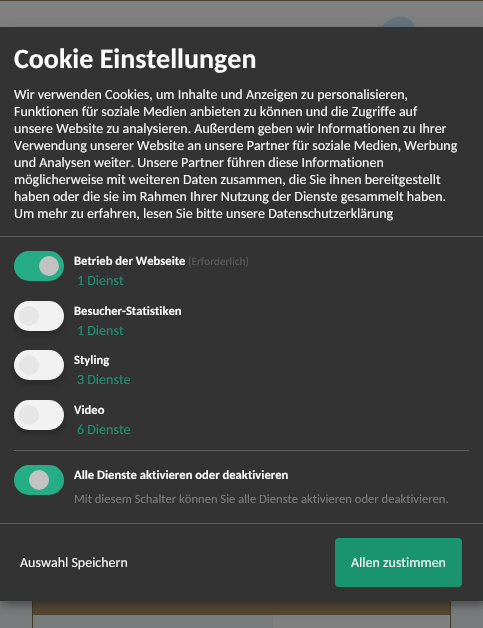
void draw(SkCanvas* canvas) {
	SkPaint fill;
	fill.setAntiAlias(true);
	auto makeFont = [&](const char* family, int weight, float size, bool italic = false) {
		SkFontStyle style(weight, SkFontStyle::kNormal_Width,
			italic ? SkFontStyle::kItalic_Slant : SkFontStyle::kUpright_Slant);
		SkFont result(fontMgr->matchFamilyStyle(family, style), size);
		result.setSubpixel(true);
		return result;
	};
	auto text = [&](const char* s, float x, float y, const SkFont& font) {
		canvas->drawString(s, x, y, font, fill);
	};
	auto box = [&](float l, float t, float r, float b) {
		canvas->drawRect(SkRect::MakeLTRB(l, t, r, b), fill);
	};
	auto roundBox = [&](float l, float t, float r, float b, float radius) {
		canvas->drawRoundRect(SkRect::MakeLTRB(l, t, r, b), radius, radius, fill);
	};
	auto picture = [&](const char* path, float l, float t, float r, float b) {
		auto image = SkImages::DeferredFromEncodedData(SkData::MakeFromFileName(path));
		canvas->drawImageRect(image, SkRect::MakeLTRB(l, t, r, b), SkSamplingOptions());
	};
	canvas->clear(0xFF787B7B);
	fill.setColor(0xFF4C412D);
	box(0, 0, 483, 1);
	picture("image0.png", 0, 1, 483, 27);
	fill.setStyle(SkPaint::kStroke_Style);
	fill.setStrokeWidth(1);
	fill.setColor(0xFF443A28);
	canvas->drawRect(SkRect::MakeLTRB(32.5f, 562.5f, 450.5f, 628.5f), fill);
	fill.setStyle(SkPaint::kFill_Style);
	{
		const SkColor colors[] = {0xFF5C5343, 0xFF534733};
		const float stops[] = {0, 1};
		const SkPoint ends[] = {{33, 563}, {33, 615}};
		fill.setShader(SkGradientShader::MakeLinear(ends, colors, stops, 2, SkTileMode::kClamp));
		fill.setAlpha(255);
	}
	box(33, 601, 450, 615);
	fill.setShader(nullptr);
	fill.setColor(0xFF808080);
	box(273, 615, 450, 628);
	fill.setColor(0x30000000);
	fill.setMaskFilter(SkMaskFilter::MakeBlur(kNormal_SkBlurStyle, 5));
	canvas->drawRect(SkRect::MakeLTRB(5, 32, 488, 606), fill);
	fill.setMaskFilter(nullptr);
	fill.setColor(0x33000000);
	fill.setMaskFilter(SkMaskFilter::MakeBlur(kNormal_SkBlurStyle, 3));
	canvas->drawRect(SkRect::MakeLTRB(0, 31, 483, 605), fill);
	fill.setMaskFilter(nullptr);
	fill.setColor(0xFF333333);
	box(0, 27, 483, 601);
	fill.setColor(0xFF5C5C5C);
	box(0, 236, 483, 237);
	fill.setColor(0xFF27AD85);
	roundBox(14, 251, 64, 281, 15);
	fill.setColor(0xFFC2C2C2);
	canvas->drawCircle(49, 266, 10, fill);
	fill.setColor(0x33000000);
	fill.setMaskFilter(SkMaskFilter::MakeBlur(kNormal_SkBlurStyle, 3));
	canvas->drawRoundRect(SkRect::MakeLTRB(14, 305, 64, 335), 15, 15, fill);
	fill.setMaskFilter(nullptr);
	fill.setColor(0xFFF2F2F2);
	roundBox(14, 301, 64, 331, 15);
	fill.setColor(0xFFE6E6E6);
	canvas->drawCircle(29, 316, 10, fill);
	fill.setColor(0x33000000);
	fill.setMaskFilter(SkMaskFilter::MakeBlur(kNormal_SkBlurStyle, 3));
	canvas->drawRoundRect(SkRect::MakeLTRB(14, 354, 64, 384), 15, 15, fill);
	fill.setMaskFilter(nullptr);
	fill.setColor(0xFFF2F2F2);
	roundBox(14, 350, 64, 380, 15);
	fill.setColor(0xFFE6E6E6);
	canvas->drawCircle(29, 365, 10, fill);
	fill.setColor(0x33000000);
	fill.setMaskFilter(SkMaskFilter::MakeBlur(kNormal_SkBlurStyle, 3));
	canvas->drawRoundRect(SkRect::MakeLTRB(14, 404, 64, 434), 15, 15, fill);
	fill.setMaskFilter(nullptr);
	fill.setColor(0xFFF2F2F2);
	roundBox(14, 400, 64, 430, 15);
	fill.setColor(0xFFE6E6E6);
	canvas->drawCircle(29, 415, 10, fill);
	fill.setColor(0xFF5C5C5C);
	box(14, 450, 469, 451);
	fill.setColor(0xFF27AD85);
	roundBox(14, 465, 64, 495, 15);
	fill.setColor(0xFFC2C2C2);
	canvas->drawCircle(39, 480, 10, fill);
	fill.setColor(0xFF5C5C5C);
	box(0, 523, 483, 524);
	fill.setColor(0xFF1A936F);
	roundBox(335, 538, 462, 587, 4);
	auto font1 = makeFont("Carlito", 700, 28);
	fill.setColor(0xFFFAFAFA);
	text("Cookie Einstellungen", 14, 68, font1);
	auto font2 = makeFont("Carlito", 400, 14);
	text("Wir verwenden Cookies, um Inhalte und Anzeigen zu personalisieren,", 14, 99, font2);
	text("Funktionen für soziale Medien anbieten zu können und die Zugriffe auf", 14, 116, font2);
	text("unsere Website zu analysieren. Außerdem geben wir Informationen zu Ihrer", 14, 133, font2);
	text("Verwendung unserer Website an unsere Partner für soziale Medien, Werbung", 14, 150, font2);
	text("und Analysen weiter. Unsere Partner führen diese Informationen", 14, 167, font2);
	text("möglicherweise mit weiteren Daten zusammen, die Sie ihnen bereitgestellt", 14, 184, font2);
	text("haben oder die sie im Rahmen Ihrer Nutzung der Dienste gesammelt haben.", 14, 201, font2);
	text("Um mehr zu erfahren, lesen Sie bitte unsere Datenschutzerklärung", 14, 218, font2);
	auto font3 = makeFont("Carlito", 700, 12.6f);
	text("Betrieb der Webseite", 74, 265, font3);
	auto font4 = makeFont("Carlito", 400, 11.25f);
	fill.setColor(0xFF5C5C5C);
	text("(Erforderlich)", 188, 265, font4);
	fill.setColor(0xFF1A936F);
	text("1 Dienst", 77, 285, font2);
	fill.setColor(0xFFFAFAFA);
	text("Besucher-Statistiken", 74, 315, font3);
	fill.setColor(0xFF1A936F);
	text("1 Dienst", 77, 335, font2);
	fill.setColor(0xFFFAFAFA);
	text("Styling", 74, 364, font3);
	fill.setColor(0xFF1A936F);
	text("3 Dienste", 77, 384, font2);
	fill.setColor(0xFFFAFAFA);
	text("Video", 74, 414, font3);
	fill.setColor(0xFF1A936F);
	text("6 Dienste", 77, 434, font2);
	fill.setColor(0xFFFAFAFA);
	text("Alle Dienste aktivieren oder deaktivieren", 74, 479, font3);
	auto font5 = makeFont("Carlito", 400, 12.6f);
	fill.setColor(0xFF7C7C7C);
	text("Mit diesem Schalter können Sie alle Dienste aktivieren oder deaktivieren.", 74, 503, font5);
	fill.setColor(0xFFFAFAFA);
	text("Auswahl Speichern", 20, 567, font2);
	text("Allen zustimmen", 351, 567, font2);
}
